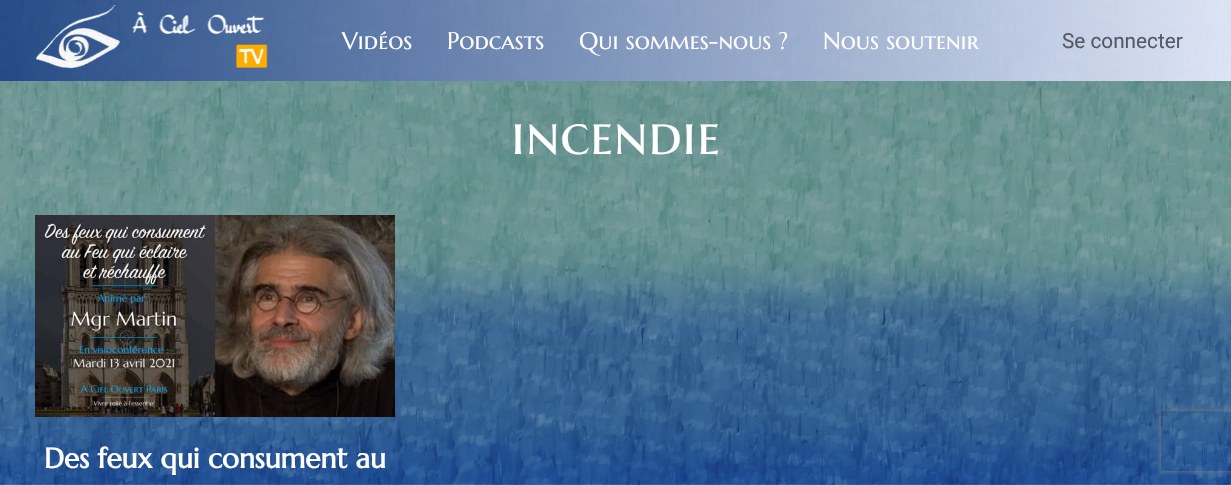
void draw(SkCanvas* canvas) {
	SkPaint fill;
	fill.setAntiAlias(true);
	auto makeFont = [&](const char* family, int weight, float size, bool italic = false) {
		SkFontStyle style(weight, SkFontStyle::kNormal_Width,
			italic ? SkFontStyle::kItalic_Slant : SkFontStyle::kUpright_Slant);
		SkFont result(fontMgr->matchFamilyStyle(family, style), size);
		result.setSubpixel(true);
		return result;
	};
	auto text = [&](const char* s, float x, float y, const SkFont& font) {
		canvas->drawString(s, x, y, font, fill);
	};
	auto spacedText = [&](const char* s, float x, float y, const SkFont& font, const SkPaint& ink, float letter, float word) {
		std::vector<SkGlyphID> glyphs(font.countText(s, strlen(s), SkTextEncoding::kUTF8));
		std::vector<float> xs(glyphs.size());
		font.textToGlyphs(s, strlen(s), SkTextEncoding::kUTF8, glyphs);
		font.getXPos(glyphs, xs, x);
		float extra = 0;
		for (size_t i = 0; i < glyphs.size(); i++) {
			xs[i] += extra;
			extra += letter + word * (glyphs[i] == font.unicharToGlyph(' '));
		}
		canvas->drawTextBlob(SkTextBlob::MakeFromPosHGlyphs(glyphs, xs, y, font), 0, 0, ink);
	};
	auto picture = [&](const char* path, float l, float t, float r, float b) {
		auto image = SkImages::DeferredFromEncodedData(SkData::MakeFromFileName(path));
		canvas->drawImageRect(image, SkRect::MakeLTRB(l, t, r, b), SkSamplingOptions());
	};
	canvas->clear(0xFFFFFFFF);
	picture("image0.png", 0, 0, 1231, 81);
	picture("image1.png", 35, 5, 268, 69);
	picture("image2.png", 0, 81, 1231, 485);
	picture("image3.png", 35, 215, 395, 417);
	canvas->save();
	canvas->clipPath(SkPathBuilder(SkPathFillType::kEvenOdd).moveTo(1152, 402).lineTo(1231, 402).lineTo(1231, 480).lineTo(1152, 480).close().moveTo(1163, 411).lineTo(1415, 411).cubicTo(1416, 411, 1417, 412, 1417, 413).lineTo(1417, 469).cubicTo(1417, 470, 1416, 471, 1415, 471).lineTo(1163, 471).cubicTo(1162, 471, 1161, 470, 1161, 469).lineTo(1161, 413).cubicTo(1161, 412, 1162, 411, 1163, 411).close().detach(), true);
	fill.setColor(0xFF808080);
	fill.setMaskFilter(SkMaskFilter::MakeBlur(kNormal_SkBlurStyle, 2.5f));
	canvas->drawRoundRect(SkRect::MakeLTRB(1161, 411, 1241, 471), 2, 2, fill);
	fill.setMaskFilter(nullptr);
	canvas->restore();
	auto font1 = makeFont("Marcellus SC", 400, 24);
	fill.setColor(0xFFFFFFFF);
	text("Vidéos", 342, 49, font1);
	text("Podcasts", 447, 49, font1);
	text("Qui sommes-nous ?", 579, 49, font1);
	text("Nous soutenir", 823, 49, font1);
	auto font2 = makeFont("Roboto", 400, 20.75f);
	fill.setColor(0xFF575864);
	text("Se connecter", 1062, 48, font2);
	auto font3 = makeFont("Marcellus SC", 400, 56);
	fill.setColor(0xFFFFFFFF);
	spacedText("incendie", 511, 154, font3, fill, 0.5f, 0);
	auto font4 = makeFont("Marcellus", 700, 28);
	text("Des feux qui consument au", 44, 468, font4);
}
